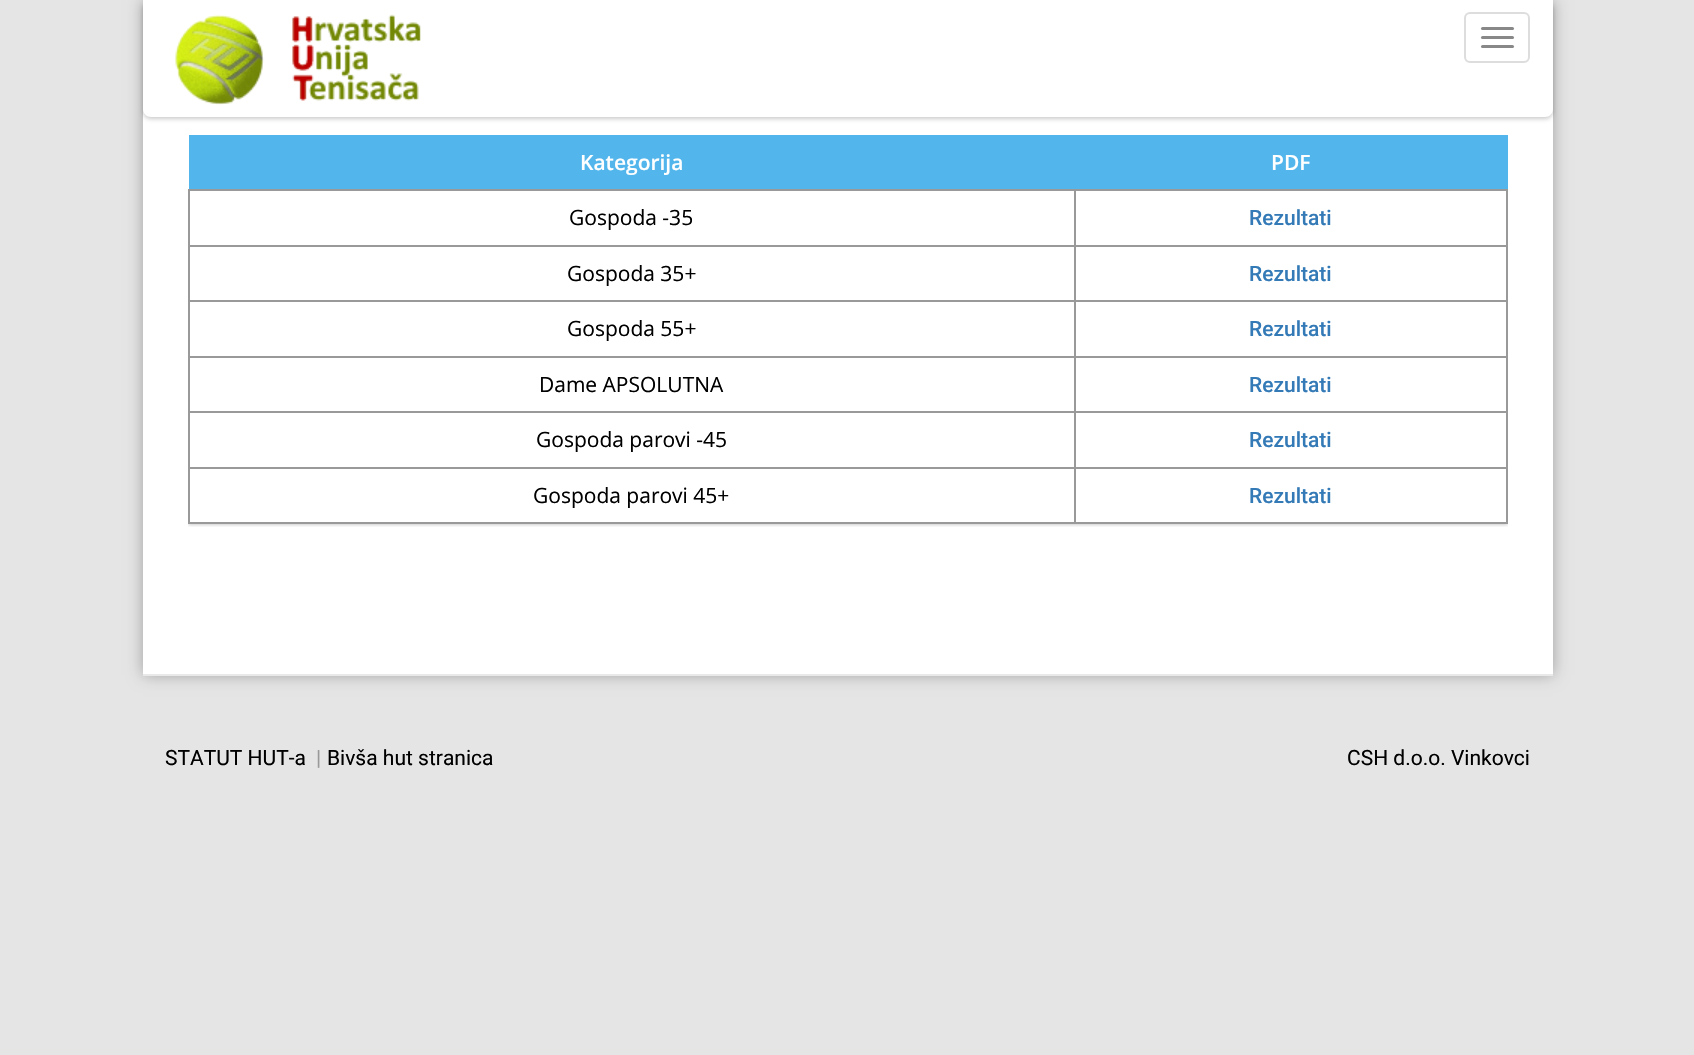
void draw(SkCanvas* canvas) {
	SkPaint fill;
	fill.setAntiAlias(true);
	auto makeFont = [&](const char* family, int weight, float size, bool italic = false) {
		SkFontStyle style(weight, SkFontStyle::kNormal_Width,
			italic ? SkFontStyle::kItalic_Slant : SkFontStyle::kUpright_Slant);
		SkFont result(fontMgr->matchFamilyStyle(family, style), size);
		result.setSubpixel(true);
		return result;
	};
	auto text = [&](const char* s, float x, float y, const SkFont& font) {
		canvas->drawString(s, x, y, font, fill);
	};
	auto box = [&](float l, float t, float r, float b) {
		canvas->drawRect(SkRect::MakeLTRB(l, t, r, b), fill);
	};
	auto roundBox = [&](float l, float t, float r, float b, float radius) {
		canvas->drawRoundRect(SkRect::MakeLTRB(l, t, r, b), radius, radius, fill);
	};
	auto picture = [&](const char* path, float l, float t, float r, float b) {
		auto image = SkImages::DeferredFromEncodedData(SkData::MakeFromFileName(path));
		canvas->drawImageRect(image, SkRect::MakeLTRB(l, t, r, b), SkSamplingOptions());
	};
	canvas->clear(0xFFE5E5E5);
	fill.setColor(0x4D000000);
	fill.setMaskFilter(SkMaskFilter::MakeBlur(kNormal_SkBlurStyle, 7.5f));
	canvas->drawRect(SkRect::MakeLTRB(143, 0, 1553, 675), fill);
	fill.setMaskFilter(nullptr);
	fill.setColor(0xFFFFFFFF);
	box(143, 109, 1553, 674);
	fill.setColor(0x33000000);
	fill.setMaskFilter(SkMaskFilter::MakeBlur(kNormal_SkBlurStyle, 2));
	canvas->drawRoundRect(SkRect::MakeLTRB(143, 2, 1553, 119), 8, 8, fill);
	fill.setMaskFilter(nullptr);
	fill.setColor(0xFFFFFFFF);
	canvas->drawPath(SkPathBuilder().moveTo(143, 0).lineTo(1553, 0).lineTo(1553, 109).cubicTo(1553, 113.5f, 1549.5f, 117, 1545, 117).lineTo(151, 117).cubicTo(146.5f, 117, 143, 113.5f, 143, 109).close().detach(), fill);
	picture("image0.png", 175, 14, 421, 105);
	fill.setStyle(SkPaint::kStroke_Style);
	fill.setStrokeWidth(2);
	fill.setColor(0xFFDDDDDD);
	canvas->drawRoundRect(SkRect::MakeLTRB(1465, 13, 1529, 62), 5, 5, fill);
	fill.setStyle(SkPaint::kFill_Style);
	fill.setColor(0xFF888888);
	roundBox(1481, 27, 1514, 30, 1.5f);
	roundBox(1481, 36, 1514, 39, 1.5f);
	roundBox(1481, 45, 1514, 48, 1.5f);
	fill.setColor(0xFFE9E9E9);
	box(143, 674, 1553, 676);
	canvas->save();
	canvas->clipRect(SkRect::MakeLTRB(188, 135, 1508, 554));
	canvas->clipRect(SkRect::MakeLTRB(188, 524, 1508, 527));
	fill.setColor(0x4D000000);
	fill.setMaskFilter(SkMaskFilter::MakeBlur(kNormal_SkBlurStyle, 2));
	canvas->drawRect(SkRect::MakeLTRB(188, 135, 1508, 524), fill);
	fill.setMaskFilter(nullptr);
	canvas->restore();
	fill.setColor(0xFF52B6EC);
	box(189, 135, 1508, 189);
	fill.setColor(0xFF999999);
	box(1074, 189, 1508, 191);
	box(1074, 245, 1508, 247);
	box(1074, 300, 1508, 302);
	box(1074, 356, 1508, 358);
	box(1074, 411, 1508, 413);
	box(1074, 467, 1508, 469);
	box(1506, 467, 1508, 524);
	box(1074, 522, 1508, 524);
	box(1074, 467, 1076, 524);
	box(188, 467, 1076, 469);
	box(1074, 411, 1076, 468);
	box(188, 411, 1076, 413);
	box(1074, 356, 1076, 413);
	box(188, 356, 1076, 358);
	box(1074, 300, 1076, 357);
	box(188, 300, 1076, 302);
	box(1074, 245, 1076, 302);
	box(188, 245, 1076, 247);
	box(1074, 189, 1076, 246);
	box(188, 189, 1076, 191);
	box(188, 522, 1076, 524);
	box(188, 467, 190, 524);
	box(188, 411, 190, 468);
	box(188, 356, 190, 413);
	box(188, 300, 190, 357);
	box(188, 245, 190, 302);
	box(188, 189, 190, 246);
	box(1506, 411, 1508, 468);
	box(1506, 356, 1508, 413);
	box(1506, 300, 1508, 357);
	box(1506, 245, 1508, 302);
	box(1506, 189, 1508, 246);
	auto font1 = makeFont("Open Sans", 600, 21);
	fill.setColor(0xFFFFFFFF);
	text("Kategorija", 580, 170, font1);
	text("PDF", 1271, 170, font1);
	auto font2 = makeFont("Open Sans", 400, 21);
	fill.setColor(0xFF000000);
	text("Gospoda -35", 569, 225, font2);
	auto font3 = makeFont("Roboto", 500, 21);
	fill.setColor(0xFF337AB7);
	text("Rezultati", 1249, 225, font3);
	fill.setColor(0xFF000000);
	text("Gospoda 35+", 567, 281, font2);
	fill.setColor(0xFF337AB7);
	text("Rezultati", 1249, 281, font3);
	fill.setColor(0xFF000000);
	text("Gospoda 55+", 567, 336, font2);
	fill.setColor(0xFF337AB7);
	text("Rezultati", 1249, 336, font3);
	fill.setColor(0xFF000000);
	text("Dame APSOLUTNA", 539, 392, font2);
	fill.setColor(0xFF337AB7);
	text("Rezultati", 1249, 392, font3);
	fill.setColor(0xFF000000);
	text("Gospoda parovi -45", 536, 447, font2);
	fill.setColor(0xFF337AB7);
	text("Rezultati", 1249, 447, font3);
	fill.setColor(0xFF000000);
	text("Gospoda parovi 45+", 533, 503, font2);
	fill.setColor(0xFF337AB7);
	text("Rezultati", 1249, 503, font3);
	auto font4 = makeFont("Roboto", 400, 21);
	fill.setColor(0xFF000000);
	text("STATUT HUT-a", 165, 765, font4);
	fill.setColor(0xFF999999);
	text("|", 316, 765, font4);
	fill.setColor(0xFF000000);
	text("Bivša hut stranica", 327, 765, font4);
	text("CSH d.o.o. Vinkovci", 1347, 765, font4);
}
